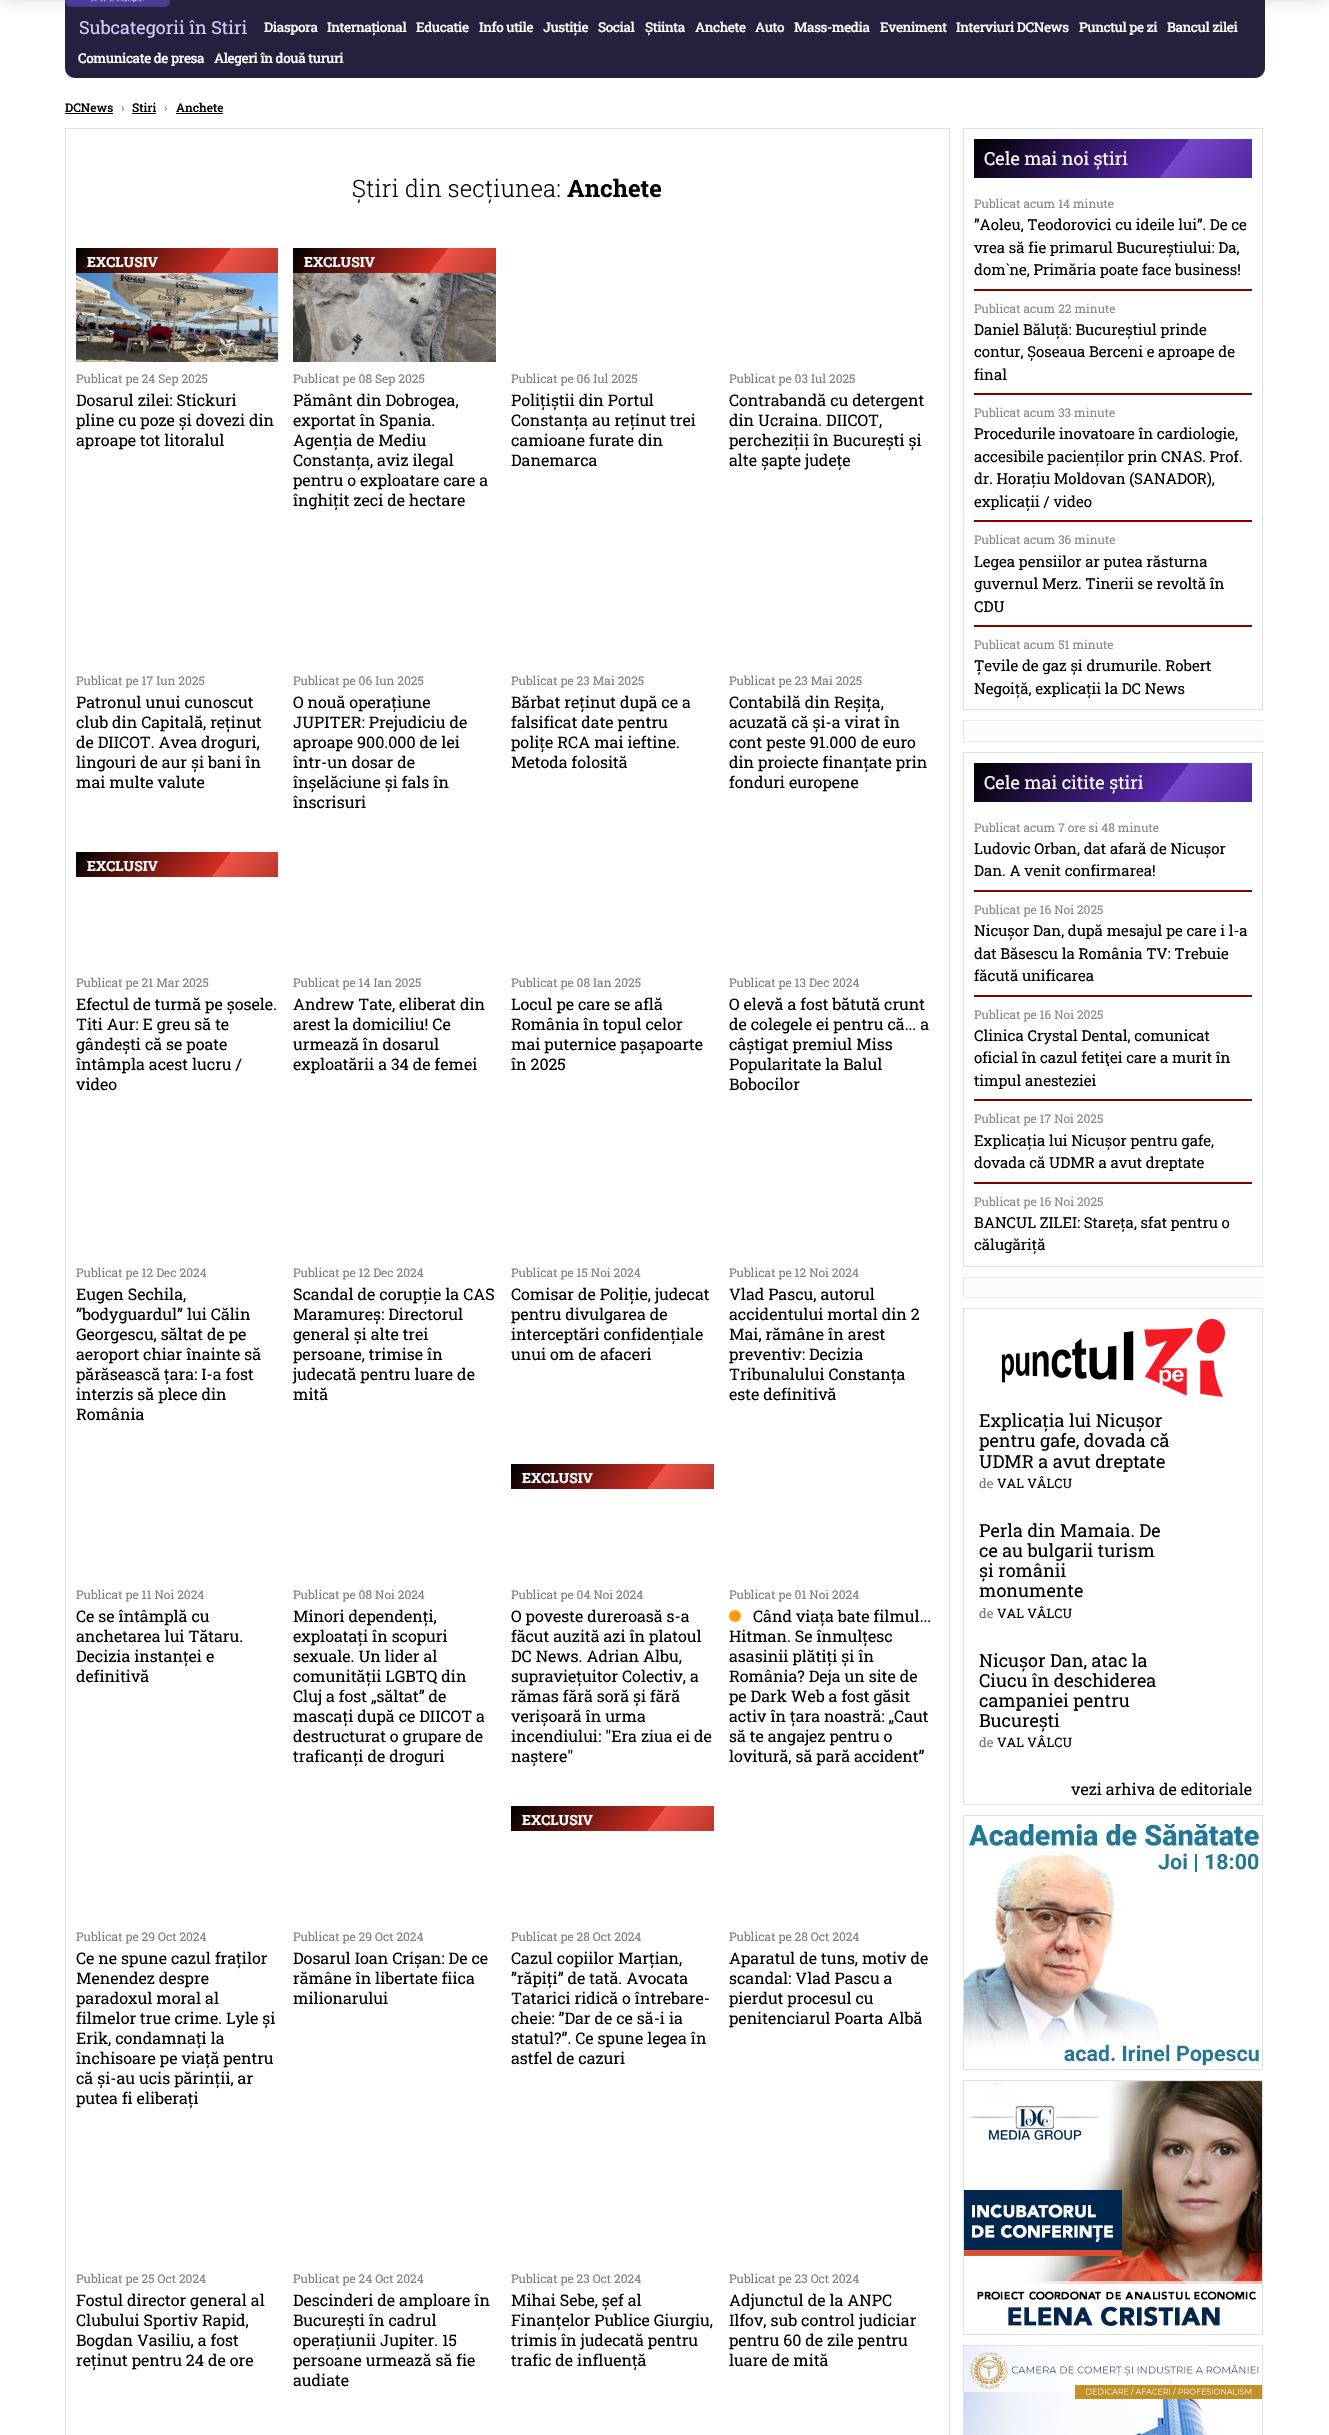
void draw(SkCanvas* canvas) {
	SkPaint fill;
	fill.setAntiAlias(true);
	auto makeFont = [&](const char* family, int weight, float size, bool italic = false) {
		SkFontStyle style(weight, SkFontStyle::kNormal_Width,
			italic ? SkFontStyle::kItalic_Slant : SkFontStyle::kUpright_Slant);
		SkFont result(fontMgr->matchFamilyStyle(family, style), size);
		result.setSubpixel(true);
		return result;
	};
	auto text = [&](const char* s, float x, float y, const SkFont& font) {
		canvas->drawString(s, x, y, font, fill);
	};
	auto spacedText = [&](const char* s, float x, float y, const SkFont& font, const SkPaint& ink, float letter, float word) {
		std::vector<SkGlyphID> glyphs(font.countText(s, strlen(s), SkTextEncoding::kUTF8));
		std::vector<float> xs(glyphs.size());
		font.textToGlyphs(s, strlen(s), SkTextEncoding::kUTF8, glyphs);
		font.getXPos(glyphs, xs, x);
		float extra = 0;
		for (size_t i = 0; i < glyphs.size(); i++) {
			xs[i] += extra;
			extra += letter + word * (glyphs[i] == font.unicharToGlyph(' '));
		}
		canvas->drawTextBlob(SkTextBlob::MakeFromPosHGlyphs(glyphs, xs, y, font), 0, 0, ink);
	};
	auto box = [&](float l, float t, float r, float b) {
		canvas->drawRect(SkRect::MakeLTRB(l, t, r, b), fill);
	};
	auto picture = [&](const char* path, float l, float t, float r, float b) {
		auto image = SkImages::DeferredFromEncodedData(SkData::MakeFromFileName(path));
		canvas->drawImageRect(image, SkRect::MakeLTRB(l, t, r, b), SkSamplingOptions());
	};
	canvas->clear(0xFFFFFFFF);
	fill.setColor(0x59000000);
	fill.setMaskFilter(SkMaskFilter::MakeBlur(kNormal_SkBlurStyle, 10));
	canvas->drawRect(SkRect::MakeLTRB(0, -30, 1329, -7), fill);
	fill.setMaskFilter(nullptr);
	fill.setColor(0xFF261F3D);
	canvas->drawPath(SkPathBuilder().moveTo(65, -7).lineTo(1265, -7).lineTo(1265, 68).cubicTo(1265, 73.5f, 1260.5f, 78, 1255, 78).lineTo(75, 78).cubicTo(69.5f, 78, 65, 73.5f, 65, 68).close().detach(), fill);
	picture("image0.png", 65, 0, 170, 7);
	fill.setColor(0xFF000000);
	box(65, 113, 113, 114);
	box(132, 113, 156, 114);
	box(176, 113, 223, 114);
	fill.setStyle(SkPaint::kStroke_Style);
	fill.setStrokeWidth(1);
	fill.setColor(0xFFE1E1E1);
	canvas->drawRect(SkRect::MakeLTRB(65.5f, 128.5f, 949.5f, 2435.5f), fill);
	fill.setStyle(SkPaint::kFill_Style);
	{
		const SkColor colors[] = {0xFFBC362C, 0xFFEE5448, 0xFFD52E23, 0xFF000000};
		const float stops[] = {0, 0.3f, 0.3f, 1};
		const SkPoint ends[] = {{246, 314}, {108, 207}};
		fill.setShader(SkGradientShader::MakeLinear(ends, colors, stops, 4, SkTileMode::kClamp));
		fill.setAlpha(255);
	}
	box(76, 248, 278, 273);
	picture("image1.png", 76, 273, 278, 362);
	{
		const SkColor colors[] = {0xFFBC362C, 0xFFEE5448, 0xFFD52E23, 0xFF000000};
		const float stops[] = {0, 0.3f, 0.3f, 1};
		const SkPoint ends[] = {{464, 314}, {325, 207}};
		fill.setShader(SkGradientShader::MakeLinear(ends, colors, stops, 4, SkTileMode::kClamp));
		fill.setAlpha(255);
	}
	box(293, 248, 496, 273);
	picture("image2.png", 293, 273, 496, 362);
	{
		const SkColor colors[] = {0xFFBC362C, 0xFFEE5448, 0xFFD52E23, 0xFF000000};
		const float stops[] = {0, 0.3f, 0.3f, 1};
		const SkPoint ends[] = {{246, 918}, {108, 811}};
		fill.setShader(SkGradientShader::MakeLinear(ends, colors, stops, 4, SkTileMode::kClamp));
		fill.setAlpha(255);
	}
	box(76, 852, 278, 877);
	{
		const SkColor colors[] = {0xFFBC362C, 0xFFEE5448, 0xFFD52E23, 0xFF000000};
		const float stops[] = {0, 0.3f, 0.3f, 1};
		const SkPoint ends[] = {{682, 1530}, {543, 1423}};
		fill.setShader(SkGradientShader::MakeLinear(ends, colors, stops, 4, SkTileMode::kClamp));
		fill.setAlpha(255);
	}
	box(511, 1464, 714, 1489);
	picture("image3.png", 729, 1610, 741, 1622);
	{
		const SkColor colors[] = {0xFFBC362C, 0xFFEE5448, 0xFFD52E23, 0xFF000000};
		const float stops[] = {0, 0.3f, 0.3f, 1};
		const SkPoint ends[] = {{682, 1872}, {543, 1765}};
		fill.setShader(SkGradientShader::MakeLinear(ends, colors, stops, 4, SkTileMode::kClamp));
		fill.setAlpha(255);
	}
	box(511, 1806, 714, 1831);
	fill.setStyle(SkPaint::kStroke_Style);
	fill.setShader(nullptr);
	fill.setColor(0xFFE1E1E1);
	canvas->drawRect(SkRect::MakeLTRB(963.5f, 128.5f, 1262.5f, 709.5f), fill);
	fill.setStyle(SkPaint::kFill_Style);
	{
		const SkColor colors[] = {0xFF5225A0, 0xFF7748CC, 0xFF5827AD, 0xFF000000};
		const float stops[] = {0, 0.3f, 0.3f, 1};
		const SkPoint ends[] = {{1209, 233}, {1017, 84}};
		fill.setShader(SkGradientShader::MakeLinear(ends, colors, stops, 4, SkTileMode::kClamp));
		fill.setAlpha(255);
	}
	box(974, 139, 1252, 178);
	fill.setShader(nullptr);
	fill.setColor(0xFF820000);
	box(974, 289, 1252, 291);
	box(974, 393, 1252, 395);
	box(974, 520, 1252, 522);
	box(974, 625, 1252, 627);
	fill.setColor(0xFFFCFCFC);
	box(964, 721, 1263, 741);
	canvas->save();
	canvas->clipRect(SkRect::MakeLTRB(953, 128, 1263, 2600));
	fill.setStyle(SkPaint::kStroke_Style);
	fill.setColor(0xFFE9E9E9);
	canvas->drawRect(SkRect::MakeLTRB(963.5f, 720.5f, 1264.5f, 741.5f), fill);
	canvas->restore();
	fill.setColor(0xFFE1E1E1);
	canvas->drawRect(SkRect::MakeLTRB(963.5f, 752.5f, 1262.5f, 1266.5f), fill);
	fill.setStyle(SkPaint::kFill_Style);
	{
		const SkColor colors[] = {0xFF5225A0, 0xFF7748CC, 0xFF5827AD, 0xFF000000};
		const float stops[] = {0, 0.3f, 0.3f, 1};
		const SkPoint ends[] = {{1209, 857}, {1017, 708}};
		fill.setShader(SkGradientShader::MakeLinear(ends, colors, stops, 4, SkTileMode::kClamp));
		fill.setAlpha(255);
	}
	box(974, 763, 1252, 802);
	fill.setShader(nullptr);
	fill.setColor(0xFF820000);
	box(974, 890, 1252, 892);
	box(974, 995, 1252, 997);
	box(974, 1099, 1252, 1101);
	box(974, 1182, 1252, 1184);
	fill.setColor(0xFFFCFCFC);
	box(964, 1278, 1263, 1297);
	canvas->save();
	canvas->clipRect(SkRect::MakeLTRB(953, 128, 1263, 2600));
	fill.setStyle(SkPaint::kStroke_Style);
	fill.setColor(0xFFE9E9E9);
	canvas->drawRect(SkRect::MakeLTRB(963.5f, 1277.5f, 1264.5f, 1297.5f), fill);
	canvas->restore();
	fill.setColor(0xFFE1E1E1);
	canvas->drawRect(SkRect::MakeLTRB(963.5f, 1308.5f, 1262.5f, 1804.5f), fill);
	picture("image4.png", 1002, 1319, 1225, 1397);
	canvas->drawRect(SkRect::MakeLTRB(963.5f, 1815.5f, 1262.5f, 2069.5f), fill);
	picture("image5.png", 964, 1816, 1262, 2066);
	canvas->drawRect(SkRect::MakeLTRB(963.5f, 2080.5f, 1262.5f, 2334.5f), fill);
	picture("image6.png", 964, 2081, 1262, 2329);
	canvas->drawRect(SkRect::MakeLTRB(963.5f, 2345.5f, 1262.5f, 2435.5f), fill);
	picture("image7.png", 964, 2346, 1262, 2435);
	auto font1 = makeFont("Roboto Slab", 400, 18);
	fill.setStyle(SkPaint::kFill_Style);
	fill.setColor(0xFFD7CDFF);
	text("Subcategorii în Stiri", 79, 34, font1);
	auto font2 = makeFont("Roboto Slab", 500, 13.5f);
	fill.setColor(0xFFFFFFFF);
	spacedText("Diaspora", 264, 32, font2, fill, -0.4f, 0);
	spacedText("Internațional", 327, 32, font2, fill, -0.4f, 0);
	spacedText("Educatie", 416, 32, font2, fill, -0.4f, 0);
	spacedText("Info utile", 479, 32, font2, fill, -0.4f, 0);
	spacedText("Justiție", 543, 32, font2, fill, -0.4f, 0);
	spacedText("Social", 598, 32, font2, fill, -0.4f, 0);
	spacedText("Știinta", 645, 32, font2, fill, -0.4f, 0);
	spacedText("Anchete", 695, 32, font2, fill, -0.4f, 0);
	spacedText("Auto", 755, 32, font2, fill, -0.4f, 0);
	spacedText("Mass-media", 794, 32, font2, fill, -0.4f, 0);
	spacedText("Eveniment", 880, 32, font2, fill, -0.4f, 0);
	spacedText("Interviuri DCNews", 956, 32, font2, fill, -0.4f, 0);
	spacedText("Punctul pe zi", 1079, 32, font2, fill, -0.4f, 0);
	spacedText("Bancul zilei", 1167, 32, font2, fill, -0.4f, 0);
	spacedText("Comunicate de presa", 78, 63, font2, fill, -0.4f, 0);
	spacedText("Alegeri în două tururi", 214, 63, font2, fill, -0.4f, 0);
	auto font3 = makeFont("Roboto Slab", 500, 12);
	fill.setColor(0xFF000000);
	text("DCNews", 65, 112, font3);
	auto font4 = makeFont("Roboto Slab", 400, 12);
	fill.setColor(0xFF7F7E7E);
	text("›", 121, 112, font4);
	fill.setColor(0xFF000000);
	text("Stiri", 132, 112, font3);
	fill.setColor(0xFF7F7E7E);
	text("›", 164, 112, font4);
	fill.setColor(0xFF000000);
	text("Anchete", 176, 112, font3);
	auto font5 = makeFont("Roboto Slab", 300, 24);
	text("Știri din secțiunea:", 352, 197, font5);
	auto font6 = makeFont("Roboto Slab", 700, 24);
	text("Anchete", 567, 197, font6);
	auto font7 = makeFont("Roboto Slab", 700, 14);
	fill.setColor(0xFFFFFFFF);
	text("EXCLUSIV", 87, 267, font7);
	auto font8 = makeFont("Roboto Slab", 400, 16);
	fill.setColor(0xFF000000);
	text("Dosarul zilei: Stickuri", 76, 406, font8);
	canvas->save();
	canvas->clipRect(SkRect::MakeLTRB(76, 387, 278, 450));
	text("pline cu poze și dovezi din", 76, 426, font8);
	canvas->restore();
	text("aproape tot litoralul", 76, 446, font8);
	fill.setColor(0xFF7F7E7E);
	text("Publicat pe 24 Sep 2025", 76, 383, font4);
	fill.setColor(0xFFFFFFFF);
	text("EXCLUSIV", 304, 267, font7);
	fill.setColor(0xFF000000);
	text("Pământ din Dobrogea,", 293, 406, font8);
	text("exportat în Spania.", 293, 426, font8);
	text("Agenția de Mediu", 293, 446, font8);
	text("Constanța, aviz ilegal", 293, 466, font8);
	text("pentru o exploatare care a", 293, 486, font8);
	text("înghițit zeci de hectare", 293, 506, font8);
	fill.setColor(0xFF7F7E7E);
	text("Publicat pe 08 Sep 2025", 293, 383, font4);
	text("Publicat pe 06 Iul 2025", 511, 383, font4);
	fill.setColor(0xFF000000);
	text("Polițiștii din Portul", 511, 406, font8);
	text("Constanța au reținut trei", 511, 426, font8);
	text("camioane furate din", 511, 446, font8);
	text("Danemarca", 511, 466, font8);
	fill.setColor(0xFF7F7E7E);
	text("Publicat pe 03 Iul 2025", 729, 383, font4);
	fill.setColor(0xFF000000);
	text("Contrabandă cu detergent", 729, 406, font8);
	text("din Ucraina. DIICOT,", 729, 426, font8);
	text("percheziții în București și", 729, 446, font8);
	text("alte șapte județe", 729, 466, font8);
	fill.setColor(0xFF7F7E7E);
	text("Publicat pe 17 Iun 2025", 76, 685, font4);
	fill.setColor(0xFF000000);
	text("Patronul unui cunoscut", 76, 708, font8);
	text("club din Capitală, reținut", 76, 728, font8);
	text("de DIICOT. Avea droguri,", 76, 748, font8);
	text("lingouri de aur și bani în", 76, 768, font8);
	text("mai multe valute", 76, 788, font8);
	fill.setColor(0xFF7F7E7E);
	text("Publicat pe 06 Iun 2025", 293, 685, font4);
	fill.setColor(0xFF000000);
	text("O nouă operațiune", 293, 708, font8);
	text("JUPITER: Prejudiciu de", 293, 728, font8);
	text("aproape 900.000 de lei", 293, 748, font8);
	text("într-un dosar de", 293, 768, font8);
	text("înșelăciune și fals în", 293, 788, font8);
	text("înscrisuri", 293, 808, font8);
	fill.setColor(0xFF7F7E7E);
	text("Publicat pe 23 Mai 2025", 511, 685, font4);
	fill.setColor(0xFF000000);
	text("Bărbat reținut după ce a", 511, 708, font8);
	text("falsificat date pentru", 511, 728, font8);
	text("polițe RCA mai ieftine.", 511, 748, font8);
	text("Metoda folosită", 511, 768, font8);
	fill.setColor(0xFF7F7E7E);
	text("Publicat pe 23 Mai 2025", 729, 685, font4);
	fill.setColor(0xFF000000);
	text("Contabilă din Reșița,", 729, 708, font8);
	text("acuzată că și-a virat în", 729, 728, font8);
	text("cont peste 91.000 de euro", 729, 748, font8);
	text("din proiecte finanțate prin", 729, 768, font8);
	text("fonduri europene", 729, 788, font8);
	fill.setColor(0xFFFFFFFF);
	text("EXCLUSIV", 87, 871, font7);
	fill.setColor(0xFF000000);
	text("Efectul de turmă pe șosele.", 76, 1010, font8);
	text("Titi Aur: E greu să te", 76, 1030, font8);
	text("gândești că se poate", 76, 1050, font8);
	text("întâmpla acest lucru /", 76, 1070, font8);
	text("video", 76, 1090, font8);
	fill.setColor(0xFF7F7E7E);
	text("Publicat pe 21 Mar 2025", 76, 987, font4);
	text("Publicat pe 14 Ian 2025", 293, 987, font4);
	fill.setColor(0xFF000000);
	text("Andrew Tate, eliberat din", 293, 1010, font8);
	text("arest la domiciliu! Ce", 293, 1030, font8);
	text("urmează în dosarul", 293, 1050, font8);
	text("exploatării a 34 de femei", 293, 1070, font8);
	fill.setColor(0xFF7F7E7E);
	text("Publicat pe 08 Ian 2025", 511, 987, font4);
	fill.setColor(0xFF000000);
	text("Locul pe care se află", 511, 1010, font8);
	text("România în topul celor", 511, 1030, font8);
	text("mai puternice pașapoarte", 511, 1050, font8);
	text("în 2025", 511, 1070, font8);
	fill.setColor(0xFF7F7E7E);
	text("Publicat pe 13 Dec 2024", 729, 987, font4);
	fill.setColor(0xFF000000);
	text("O elevă a fost bătută crunt", 729, 1010, font8);
	text("de colegele ei pentru că... a", 729, 1030, font8);
	text("câștigat premiul Miss", 729, 1050, font8);
	text("Popularitate la Balul", 729, 1070, font8);
	text("Bobocilor", 729, 1090, font8);
	fill.setColor(0xFF7F7E7E);
	text("Publicat pe 12 Dec 2024", 76, 1277, font4);
	fill.setColor(0xFF000000);
	text("Eugen Sechila,", 76, 1300, font8);
	text("”bodyguardul” lui Călin", 76, 1320, font8);
	text("Georgescu, săltat de pe", 76, 1340, font8);
	text("aeroport chiar înainte să", 76, 1360, font8);
	canvas->save();
	canvas->clipRect(SkRect::MakeLTRB(76, 1281, 278, 1424));
	text("părăsească țara: I-a fost", 76, 1380, font8);
	canvas->restore();
	text("interzis să plece din", 76, 1400, font8);
	text("România", 76, 1420, font8);
	fill.setColor(0xFF7F7E7E);
	text("Publicat pe 12 Dec 2024", 293, 1277, font4);
	fill.setColor(0xFF000000);
	text("Scandal de corupție la CAS", 293, 1300, font8);
	text("Maramureș: Directorul", 293, 1320, font8);
	text("general și alte trei", 293, 1340, font8);
	text("persoane, trimise în", 293, 1360, font8);
	text("judecată pentru luare de", 293, 1380, font8);
	text("mită", 293, 1400, font8);
	fill.setColor(0xFF7F7E7E);
	text("Publicat pe 15 Noi 2024", 511, 1277, font4);
	fill.setColor(0xFF000000);
	text("Comisar de Poliție, judecat", 511, 1300, font8);
	text("pentru divulgarea de", 511, 1320, font8);
	text("interceptări confidențiale", 511, 1340, font8);
	text("unui om de afaceri", 511, 1360, font8);
	fill.setColor(0xFF7F7E7E);
	text("Publicat pe 12 Noi 2024", 729, 1277, font4);
	fill.setColor(0xFF000000);
	text("Vlad Pascu, autorul", 729, 1300, font8);
	text("accidentului mortal din 2", 729, 1320, font8);
	text("Mai, rămâne în arest", 729, 1340, font8);
	text("preventiv: Decizia", 729, 1360, font8);
	text("Tribunalului Constanța", 729, 1380, font8);
	text("este definitivă", 729, 1400, font8);
	fill.setColor(0xFF7F7E7E);
	text("Publicat pe 11 Noi 2024", 76, 1599, font4);
	fill.setColor(0xFF000000);
	text("Ce se întâmplă cu", 76, 1622, font8);
	text("anchetarea lui Tătaru.", 76, 1642, font8);
	text("Decizia instanței e", 76, 1662, font8);
	text("definitivă", 76, 1682, font8);
	fill.setColor(0xFF7F7E7E);
	text("Publicat pe 08 Noi 2024", 293, 1599, font4);
	fill.setColor(0xFF000000);
	text("Minori dependenți,", 293, 1622, font8);
	text("exploatați în scopuri", 293, 1642, font8);
	text("sexuale. Un lider al", 293, 1662, font8);
	text("comunității LGBTQ din", 293, 1682, font8);
	text("Cluj a fost „săltat” de", 293, 1702, font8);
	text("mascați după ce DIICOT a", 293, 1722, font8);
	text("destructurat o grupare de", 293, 1742, font8);
	text("traficanți de droguri", 293, 1762, font8);
	fill.setColor(0xFFFFFFFF);
	text("EXCLUSIV", 522, 1483, font7);
	fill.setColor(0xFF000000);
	text("O poveste dureroasă s-a", 511, 1622, font8);
	text("făcut auzită azi în platoul", 511, 1642, font8);
	text("DC News. Adrian Albu,", 511, 1662, font8);
	text("supraviețuitor Colectiv, a", 511, 1682, font8);
	text("rămas fără soră și fără", 511, 1702, font8);
	text("verișoară în urma", 511, 1722, font8);
	text("incendiului: \"Era ziua ei de", 511, 1742, font8);
	text("naștere\"", 511, 1762, font8);
	fill.setColor(0xFF7F7E7E);
	text("Publicat pe 04 Noi 2024", 511, 1599, font4);
	text("Publicat pe 01 Noi 2024", 729, 1599, font4);
	fill.setColor(0xFF000000);
	text("Când viața bate filmul...", 753, 1622, font8);
	text("Hitman. Se înmulțesc", 729, 1642, font8);
	text("asasinii plătiți și în", 729, 1662, font8);
	text("România? Deja un site de", 729, 1682, font8);
	text("pe Dark Web a fost găsit", 729, 1702, font8);
	text("activ în țara noastră: „Caut", 729, 1722, font8);
	text("să te angajez pentru o", 729, 1742, font8);
	text("lovitură, să pară accident”", 729, 1762, font8);
	fill.setColor(0xFF7F7E7E);
	text("Publicat pe 29 Oct 2024", 76, 1941, font4);
	fill.setColor(0xFF000000);
	text("Ce ne spune cazul fraților", 76, 1964, font8);
	text("Menendez despre", 76, 1984, font8);
	canvas->save();
	canvas->clipRect(SkRect::MakeLTRB(76, 1945, 278, 2108));
	text("paradoxul moral al", 76, 2004, font8);
	text("filmelor true crime. Lyle și", 76, 2024, font8);
	canvas->restore();
	text("Erik, condamnați la", 76, 2044, font8);
	text("închisoare pe viață pentru", 76, 2064, font8);
	text("că și-au ucis părinții, ar", 76, 2084, font8);
	canvas->save();
	canvas->clipRect(SkRect::MakeLTRB(76, 1945, 278, 2108));
	text("putea fi eliberați", 76, 2104, font8);
	canvas->restore();
	fill.setColor(0xFF7F7E7E);
	text("Publicat pe 29 Oct 2024", 293, 1941, font4);
	fill.setColor(0xFF000000);
	text("Dosarul Ioan Crișan: De ce", 293, 1964, font8);
	text("rămâne în libertate fiica", 293, 1984, font8);
	text("milionarului", 293, 2004, font8);
	fill.setColor(0xFFFFFFFF);
	text("EXCLUSIV", 522, 1825, font7);
	fill.setColor(0xFF000000);
	text("Cazul copiilor Marțian,", 511, 1964, font8);
	text("”răpiți” de tată. Avocata", 511, 1984, font8);
	text("Tatarici ridică o întrebare-", 511, 2004, font8);
	text("cheie: ”Dar de ce să-i ia", 511, 2024, font8);
	text("statul?”. Ce spune legea în", 511, 2044, font8);
	text("astfel de cazuri", 511, 2064, font8);
	fill.setColor(0xFF7F7E7E);
	text("Publicat pe 28 Oct 2024", 511, 1941, font4);
	text("Publicat pe 28 Oct 2024", 729, 1941, font4);
	fill.setColor(0xFF000000);
	text("Aparatul de tuns, motiv de", 729, 1964, font8);
	text("scandal: Vlad Pascu a", 729, 1984, font8);
	text("pierdut procesul cu", 729, 2004, font8);
	text("penitenciarul Poarta Albă", 729, 2024, font8);
	fill.setColor(0xFF7F7E7E);
	text("Publicat pe 25 Oct 2024", 76, 2283, font4);
	fill.setColor(0xFF000000);
	text("Fostul director general al", 76, 2306, font8);
	text("Clubului Sportiv Rapid,", 76, 2326, font8);
	text("Bogdan Vasiliu, a fost", 76, 2346, font8);
	text("reținut pentru 24 de ore", 76, 2366, font8);
	fill.setColor(0xFF7F7E7E);
	text("Publicat pe 24 Oct 2024", 293, 2283, font4);
	fill.setColor(0xFF000000);
	text("Descinderi de amploare în", 293, 2306, font8);
	text("București în cadrul", 293, 2326, font8);
	text("operațiunii Jupiter. 15", 293, 2346, font8);
	text("persoane urmează să fie", 293, 2366, font8);
	text("audiate", 293, 2386, font8);
	fill.setColor(0xFF7F7E7E);
	text("Publicat pe 23 Oct 2024", 511, 2283, font4);
	fill.setColor(0xFF000000);
	text("Mihai Sebe, șef al", 511, 2306, font8);
	text("Finanțelor Publice Giurgiu,", 511, 2326, font8);
	text("trimis în judecată pentru", 511, 2346, font8);
	text("trafic de influență", 511, 2366, font8);
	fill.setColor(0xFF7F7E7E);
	text("Publicat pe 23 Oct 2024", 729, 2283, font4);
	fill.setColor(0xFF000000);
	text("Adjunctul de la ANPC", 729, 2306, font8);
	text("Ilfov, sub control judiciar", 729, 2326, font8);
	text("pentru 60 de zile pentru", 729, 2346, font8);
	text("luare de mită", 729, 2366, font8);
	fill.setColor(0xFFFFFFFF);
	text("Cele mai noi știri", 984, 165, font1);
	fill.setColor(0xFF888888);
	text("Publicat acum 14 minute", 974, 208, font4);
	auto font9 = makeFont("Roboto Slab", 400, 15);
	fill.setColor(0xFF000000);
	text("”Aoleu, Teodorovici cu ideile lui”. De ce", 974, 230, font9);
	text("vrea să fie primarul Bucureștiului: Da,", 974, 253, font9);
	text("dom`ne, Primăria poate face business!", 974, 275, font9);
	fill.setColor(0xFF888888);
	text("Publicat acum 22 minute", 974, 313, font4);
	fill.setColor(0xFF000000);
	text("Daniel Băluță: Bucureștiul prinde", 974, 335, font9);
	text("contur, Șoseaua Berceni e aproape de", 974, 357, font9);
	text("final", 974, 380, font9);
	fill.setColor(0xFF888888);
	text("Publicat acum 33 minute", 974, 417, font4);
	fill.setColor(0xFF000000);
	text("Procedurile inovatoare în cardiologie,", 974, 439, font9);
	text("accesibile pacienților prin CNAS. Prof.", 974, 462, font9);
	text("dr. Horațiu Moldovan (SANADOR),", 974, 484, font9);
	text("explicații / video", 974, 507, font9);
	fill.setColor(0xFF888888);
	text("Publicat acum 36 minute", 974, 544, font4);
	fill.setColor(0xFF000000);
	text("Legea pensiilor ar putea răsturna", 974, 567, font9);
	text("guvernul Merz. Tinerii se revoltă în", 974, 589, font9);
	text("CDU", 974, 612, font9);
	fill.setColor(0xFF888888);
	text("Publicat acum 51 minute", 974, 649, font4);
	fill.setColor(0xFF000000);
	text("Țevile de gaz și drumurile. Robert", 974, 671, font9);
	text("Negoiță, explicații la DC News", 974, 694, font9);
	fill.setColor(0xFFFFFFFF);
	text("Cele mai citite știri", 984, 789, font1);
	fill.setColor(0xFF888888);
	text("Publicat acum 7 ore si 48 minute", 974, 832, font4);
	fill.setColor(0xFF000000);
	text("Ludovic Orban, dat afară de Nicușor", 974, 854, font9);
	text("Dan. A venit confirmarea!", 974, 876, font9);
	fill.setColor(0xFF888888);
	text("Publicat pe 16 Noi 2025", 974, 914, font4);
	fill.setColor(0xFF000000);
	text("Nicușor Dan, după mesajul pe care i l-a", 974, 936, font9);
	text("dat Băsescu la România TV: Trebuie", 974, 959, font9);
	text("făcută unificarea", 974, 981, font9);
	fill.setColor(0xFF888888);
	text("Publicat pe 16 Noi 2025", 974, 1019, font4);
	fill.setColor(0xFF000000);
	text("Clinica Crystal Dental, comunicat", 974, 1041, font9);
	text("oficial în cazul fetiţei care a murit în", 974, 1063, font9);
	text("timpul anesteziei", 974, 1086, font9);
	fill.setColor(0xFF888888);
	text("Publicat pe 17 Noi 2025", 974, 1123, font4);
	fill.setColor(0xFF000000);
	text("Explicația lui Nicușor pentru gafe,", 974, 1146, font9);
	text("dovada că UDMR a avut dreptate", 974, 1168, font9);
	fill.setColor(0xFF888888);
	text("Publicat pe 16 Noi 2025", 974, 1206, font4);
	fill.setColor(0xFF000000);
	text("BANCUL ZILEI: Stareța, sfat pentru o", 974, 1228, font9);
	text("călugăriță", 974, 1250, font9);
	text("Explicația lui Nicușor", 979, 1427, font1);
	text("pentru gafe, dovada că", 979, 1447, font1);
	text("UDMR a avut dreptate", 979, 1468, font1);
	auto font10 = makeFont("Roboto Slab", 400, 13);
	fill.setColor(0xFF787878);
	text("de", 979, 1488, font10);
	fill.setColor(0xFF000000);
	text("VAL VÂLCU", 997, 1488, font10);
	text("Perla din Mamaia. De", 979, 1537, font1);
	text("ce au bulgarii turism", 979, 1557, font1);
	text("și românii", 979, 1577, font1);
	text("monumente", 979, 1597, font1);
	fill.setColor(0xFF787878);
	text("de", 979, 1618, font10);
	fill.setColor(0xFF000000);
	text("VAL VÂLCU", 997, 1618, font10);
	text("Nicușor Dan, atac la", 979, 1667, font1);
	text("Ciucu în deschiderea", 979, 1687, font1);
	text("campaniei pentru", 979, 1707, font1);
	text("București", 979, 1727, font1);
	fill.setColor(0xFF787878);
	text("de", 979, 1747, font10);
	fill.setColor(0xFF000000);
	text("VAL VÂLCU", 997, 1747, font10);
	text("vezi arhiva de editoriale", 1071, 1795, font8);
}
